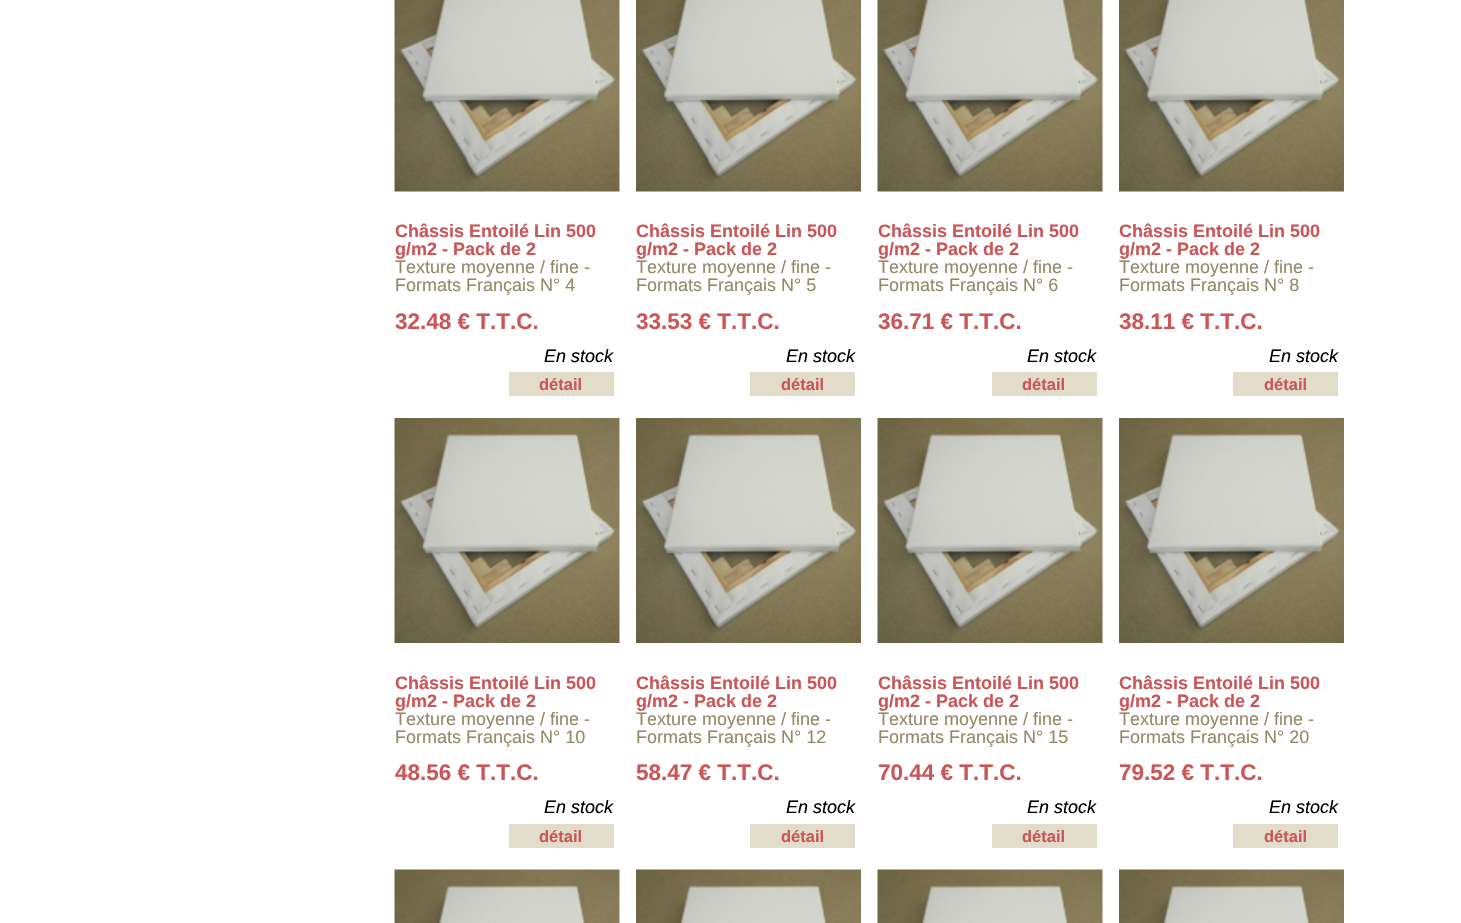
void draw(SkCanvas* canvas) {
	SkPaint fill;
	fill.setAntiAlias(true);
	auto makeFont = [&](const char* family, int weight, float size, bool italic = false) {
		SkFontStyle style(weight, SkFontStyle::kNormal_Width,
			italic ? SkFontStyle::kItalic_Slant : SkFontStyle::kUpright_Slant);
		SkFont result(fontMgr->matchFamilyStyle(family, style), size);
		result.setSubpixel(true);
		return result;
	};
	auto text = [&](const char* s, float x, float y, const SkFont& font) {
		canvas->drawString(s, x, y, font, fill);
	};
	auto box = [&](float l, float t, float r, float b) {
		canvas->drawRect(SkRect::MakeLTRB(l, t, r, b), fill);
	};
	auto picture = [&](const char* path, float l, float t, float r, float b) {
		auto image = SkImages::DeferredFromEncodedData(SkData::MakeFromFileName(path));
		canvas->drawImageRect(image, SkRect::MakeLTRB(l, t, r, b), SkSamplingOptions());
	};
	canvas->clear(0xFFFFFFFF);
	picture("image0.png", 394, 0, 620, 192);
	fill.setColor(0xFFE2DCCA);
	box(509, 372, 614, 396);
	picture("image1.png", 636, 0, 861, 192);
	box(750, 372, 855, 396);
	picture("image2.png", 877, 0, 1103, 192);
	box(992, 372, 1097, 396);
	picture("image3.png", 1119, 0, 1344, 192);
	box(1233, 372, 1338, 396);
	picture("image4.png", 394, 418, 620, 643);
	box(509, 824, 614, 848);
	picture("image5.png", 636, 418, 861, 643);
	box(750, 824, 855, 848);
	picture("image6.png", 877, 418, 1103, 643);
	box(992, 824, 1097, 848);
	picture("image7.png", 1119, 418, 1344, 643);
	box(1233, 824, 1338, 848);
	picture("image8.png", 394, 869, 620, 923);
	picture("image9.png", 636, 869, 861, 923);
	picture("image10.png", 877, 869, 1103, 923);
	picture("image11.png", 1119, 869, 1344, 923);
	auto font1 = makeFont("Liberation Sans", 700, 18);
	fill.setColor(0xFFCA5657);
	text("Châssis Entoilé Lin 500", 395, 237, font1);
	text("g/m2 - Pack de 2", 395, 255, font1);
	auto font2 = makeFont("Liberation Sans", 400, 18);
	fill.setColor(0xFF938969);
	text("Texture moyenne / fine -", 395, 273, font2);
	text("Formats Français N° 4", 395, 291, font2);
	auto font3 = makeFont("Liberation Sans", 700, 22.5f);
	fill.setColor(0xFFCA5657);
	text("32.48 € T.T.C.", 395, 329, font3);
	auto font4 = makeFont("Liberation Sans", 400, 18, true);
	fill.setColor(0xFF000000);
	text("En stock", 544, 362, font4);
	auto font5 = makeFont("Liberation Sans", 700, 16.5f);
	fill.setColor(0xFFCA5657);
	text("détail", 539, 390, font5);
	text("Châssis Entoilé Lin 500", 636, 237, font1);
	text("g/m2 - Pack de 2", 636, 255, font1);
	fill.setColor(0xFF938969);
	text("Texture moyenne / fine -", 636, 273, font2);
	text("Formats Français N° 5", 636, 291, font2);
	fill.setColor(0xFFCA5657);
	text("33.53 € T.T.C.", 636, 329, font3);
	fill.setColor(0xFF000000);
	text("En stock", 786, 362, font4);
	fill.setColor(0xFFCA5657);
	text("détail", 781, 390, font5);
	text("Châssis Entoilé Lin 500", 878, 237, font1);
	text("g/m2 - Pack de 2", 878, 255, font1);
	fill.setColor(0xFF938969);
	text("Texture moyenne / fine -", 878, 273, font2);
	text("Formats Français N° 6", 878, 291, font2);
	fill.setColor(0xFFCA5657);
	text("36.71 € T.T.C.", 878, 329, font3);
	fill.setColor(0xFF000000);
	text("En stock", 1027, 362, font4);
	fill.setColor(0xFFCA5657);
	text("détail", 1022, 390, font5);
	text("Châssis Entoilé Lin 500", 1119, 237, font1);
	text("g/m2 - Pack de 2", 1119, 255, font1);
	fill.setColor(0xFF938969);
	text("Texture moyenne / fine -", 1119, 273, font2);
	text("Formats Français N° 8", 1119, 291, font2);
	fill.setColor(0xFFCA5657);
	text("38.11 € T.T.C.", 1119, 329, font3);
	fill.setColor(0xFF000000);
	text("En stock", 1269, 362, font4);
	fill.setColor(0xFFCA5657);
	text("détail", 1264, 390, font5);
	text("Châssis Entoilé Lin 500", 395, 689, font1);
	text("g/m2 - Pack de 2", 395, 707, font1);
	fill.setColor(0xFF938969);
	text("Texture moyenne / fine -", 395, 725, font2);
	text("Formats Français N° 10", 395, 743, font2);
	fill.setColor(0xFFCA5657);
	text("48.56 € T.T.C.", 395, 780, font3);
	fill.setColor(0xFF000000);
	text("En stock", 544, 813, font4);
	fill.setColor(0xFFCA5657);
	text("détail", 539, 842, font5);
	text("Châssis Entoilé Lin 500", 636, 689, font1);
	text("g/m2 - Pack de 2", 636, 707, font1);
	fill.setColor(0xFF938969);
	text("Texture moyenne / fine -", 636, 725, font2);
	text("Formats Français N° 12", 636, 743, font2);
	fill.setColor(0xFFCA5657);
	text("58.47 € T.T.C.", 636, 780, font3);
	fill.setColor(0xFF000000);
	text("En stock", 786, 813, font4);
	fill.setColor(0xFFCA5657);
	text("détail", 781, 842, font5);
	text("Châssis Entoilé Lin 500", 878, 689, font1);
	text("g/m2 - Pack de 2", 878, 707, font1);
	fill.setColor(0xFF938969);
	text("Texture moyenne / fine -", 878, 725, font2);
	text("Formats Français N° 15", 878, 743, font2);
	fill.setColor(0xFFCA5657);
	text("70.44 € T.T.C.", 878, 780, font3);
	fill.setColor(0xFF000000);
	text("En stock", 1027, 813, font4);
	fill.setColor(0xFFCA5657);
	text("détail", 1022, 842, font5);
	text("Châssis Entoilé Lin 500", 1119, 689, font1);
	text("g/m2 - Pack de 2", 1119, 707, font1);
	fill.setColor(0xFF938969);
	text("Texture moyenne / fine -", 1119, 725, font2);
	text("Formats Français N° 20", 1119, 743, font2);
	fill.setColor(0xFFCA5657);
	text("79.52 € T.T.C.", 1119, 780, font3);
	fill.setColor(0xFF000000);
	text("En stock", 1269, 813, font4);
	fill.setColor(0xFFCA5657);
	text("détail", 1264, 842, font5);
}
